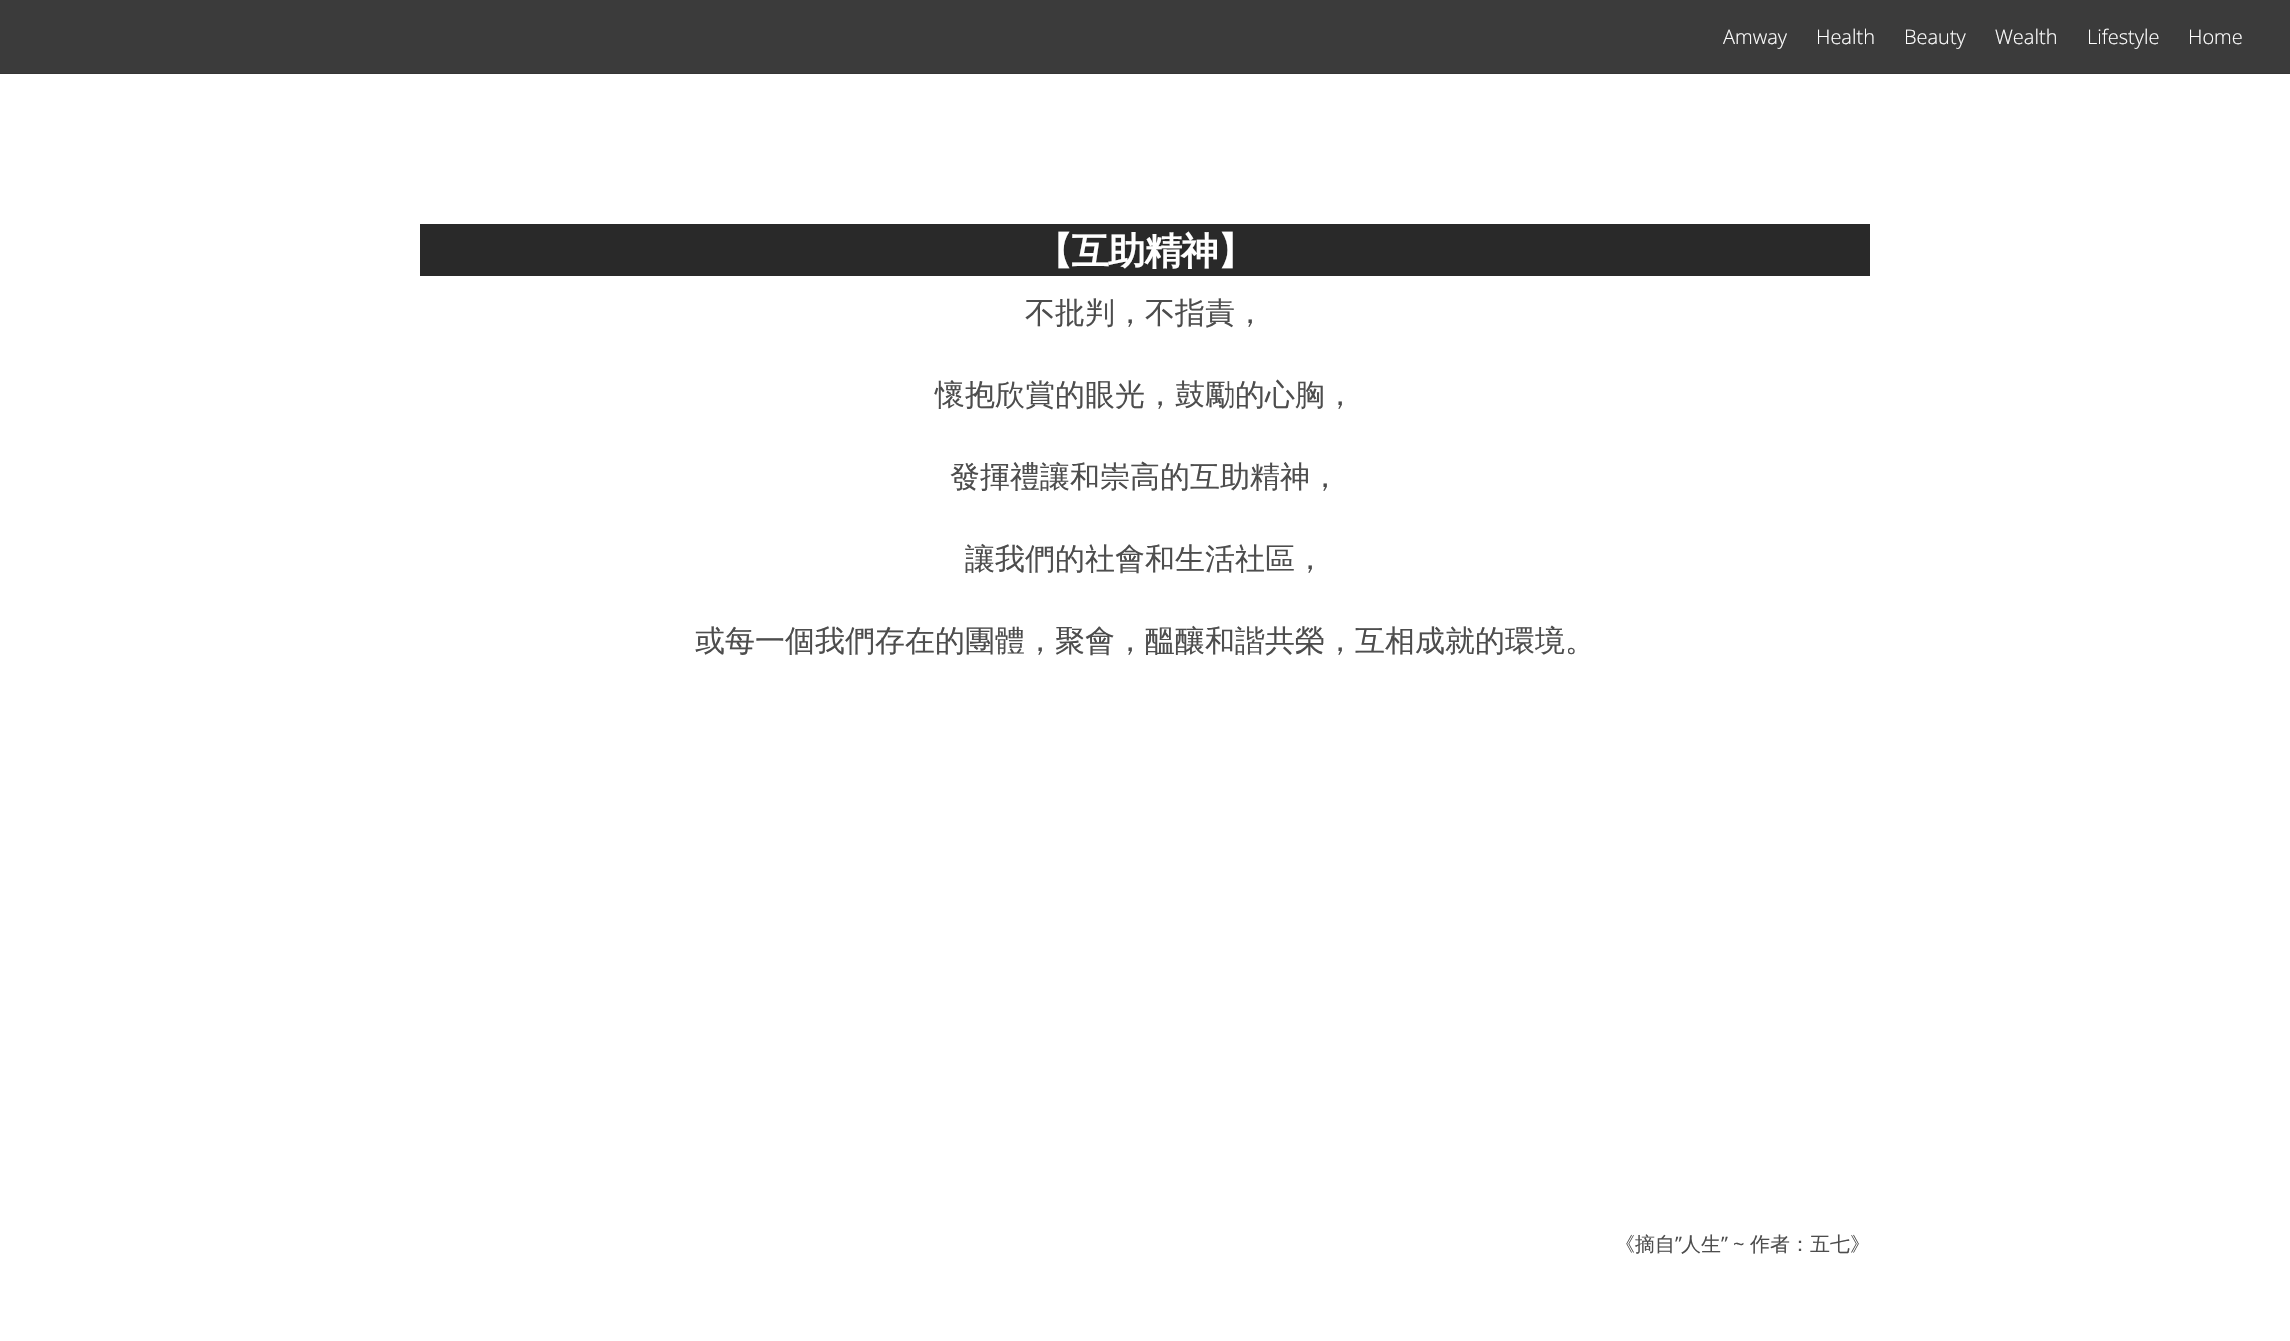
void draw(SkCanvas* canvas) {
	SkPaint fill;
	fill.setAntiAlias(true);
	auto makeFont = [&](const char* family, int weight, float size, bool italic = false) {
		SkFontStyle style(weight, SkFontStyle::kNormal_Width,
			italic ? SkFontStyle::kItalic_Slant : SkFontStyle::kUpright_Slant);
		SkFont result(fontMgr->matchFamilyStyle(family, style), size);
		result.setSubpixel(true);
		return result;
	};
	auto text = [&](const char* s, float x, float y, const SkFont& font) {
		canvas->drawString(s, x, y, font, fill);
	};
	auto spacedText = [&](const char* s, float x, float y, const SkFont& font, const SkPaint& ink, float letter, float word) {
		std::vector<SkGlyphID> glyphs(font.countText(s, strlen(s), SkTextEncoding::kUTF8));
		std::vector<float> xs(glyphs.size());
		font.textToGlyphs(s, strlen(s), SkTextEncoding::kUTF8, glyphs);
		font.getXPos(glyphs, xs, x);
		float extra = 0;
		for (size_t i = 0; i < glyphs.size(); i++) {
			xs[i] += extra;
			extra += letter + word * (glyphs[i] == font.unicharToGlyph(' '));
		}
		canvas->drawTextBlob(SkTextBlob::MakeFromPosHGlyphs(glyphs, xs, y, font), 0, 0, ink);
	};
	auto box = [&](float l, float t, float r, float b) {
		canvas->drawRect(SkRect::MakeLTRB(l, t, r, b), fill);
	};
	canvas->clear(0xFFFFFFFF);
	fill.setColor(0xFF3B3B3B);
	box(0, 0, 2290, 73);
	fill.setColor(0xFF353535);
	box(0, 73, 2290, 74);
	fill.setColor(0xFF292929);
	box(420, 224, 1870, 276);
	auto font1 = makeFont("Open Sans", 300, 20);
	fill.setColor(0xFFFFFFFF);
	text("Amway", 1723, 44, font1);
	text("Health", 1816, 44, font1);
	text("Beauty", 1904, 44, font1);
	text("Wealth", 1995, 44, font1);
	text("Lifestyle", 2087, 44, font1);
	text("Home", 2188, 44, font1);
	auto font2 = makeFont("WenQuanYi Zen Hei", 700, 37.5f);
	spacedText("【互助精神】", 1035, 264, font2, fill, -1, 0);
	auto font3 = makeFont("WenQuanYi Zen Hei", 500, 30);
	fill.setColor(0xFF4D4D4D);
	text("不批判，不指責，", 1025, 323, font3);
	text("懷抱欣賞的眼光，鼓勵的心胸，", 935, 405, font3);
	text("發揮禮讓和崇高的互助精神，", 950, 487, font3);
	text("讓我們的社會和生活社區，", 965, 569, font3);
	text("或每一個我們存在的團體，聚會，醞釀和諧共榮，互相成就的環境。", 695, 651, font3);
	auto font4 = makeFont("WenQuanYi Zen Hei", 500, 20);
	text("《摘自", 1615, 1251, font4);
	auto font5 = makeFont("Open Sans", 400, 20);
	text("’’", 1675, 1251, font5);
	text("人生", 1681, 1251, font4);
	text("’’ ~", 1721, 1251, font5);
	text("作者：五七》", 1750, 1251, font4);
}
